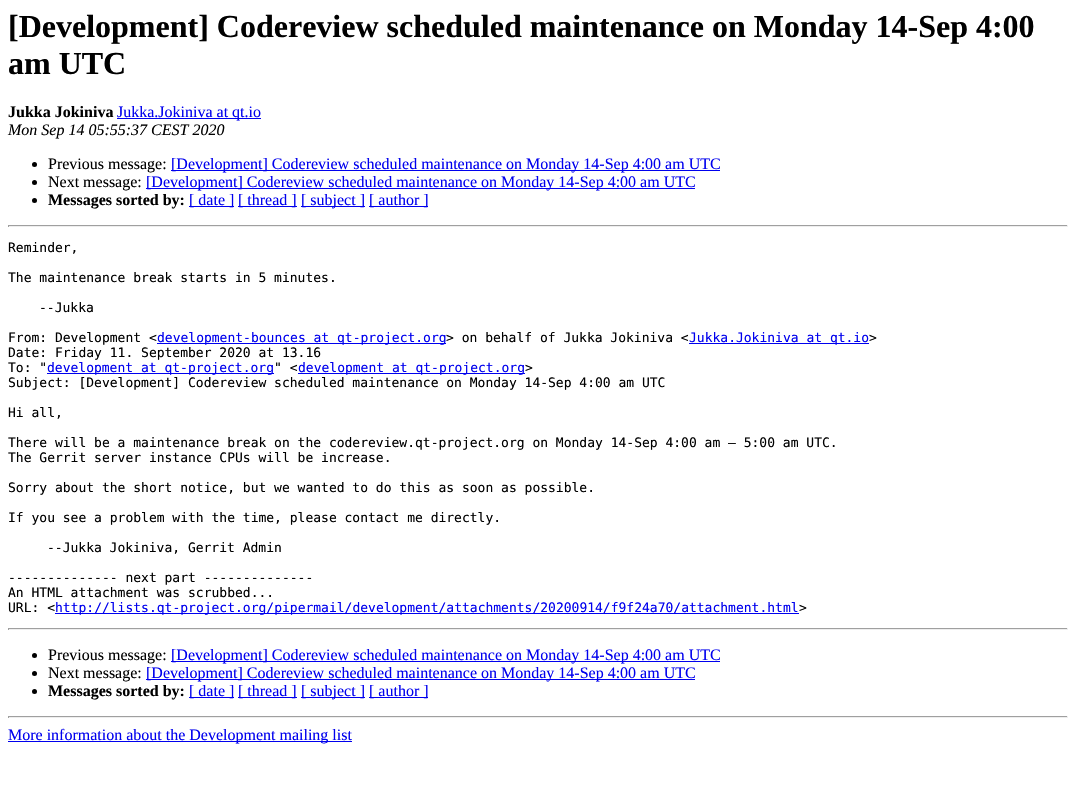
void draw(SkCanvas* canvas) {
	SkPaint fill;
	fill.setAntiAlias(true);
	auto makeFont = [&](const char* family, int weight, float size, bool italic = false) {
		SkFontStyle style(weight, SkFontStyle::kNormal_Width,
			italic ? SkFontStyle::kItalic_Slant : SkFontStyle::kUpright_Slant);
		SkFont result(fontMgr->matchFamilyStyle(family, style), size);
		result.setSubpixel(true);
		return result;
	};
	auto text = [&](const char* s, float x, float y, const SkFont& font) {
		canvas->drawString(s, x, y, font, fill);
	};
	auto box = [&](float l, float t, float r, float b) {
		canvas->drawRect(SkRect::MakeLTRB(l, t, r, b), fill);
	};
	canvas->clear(0xFFFFFFFF);
	fill.setColor(0xFF0000EE);
	box(117, 118, 261, 119);
	fill.setColor(0xFF000000);
	canvas->drawCircle(34.5f, 164.5f, 2.5f, fill);
	fill.setColor(0xFF0000EE);
	box(171, 170, 720, 171);
	fill.setColor(0xFF000000);
	canvas->drawCircle(34.5f, 182.5f, 2.5f, fill);
	fill.setColor(0xFF0000EE);
	box(146, 188, 695, 189);
	fill.setColor(0xFF000000);
	canvas->drawCircle(34.5f, 200.5f, 2.5f, fill);
	fill.setColor(0xFF0000EE);
	box(189, 206, 234, 207);
	box(238, 206, 297, 207);
	box(301, 206, 365, 207);
	box(369, 206, 428, 207);
	fill.setColor(0xFF9F9F9F);
	box(8, 225, 1068, 226);
	fill.setColor(0xFFEEEEEE);
	box(1067, 225, 1068, 227);
	box(8, 226, 1068, 227);
	fill.setColor(0xFF9F9F9F);
	box(8, 225, 9, 227);
	fill.setColor(0xFF0000EE);
	box(157, 343, 446, 344);
	box(689, 343, 869, 344);
	box(47, 373, 274, 374);
	box(298, 373, 525, 374);
	box(55, 613, 799, 614);
	fill.setColor(0xFF9F9F9F);
	box(8, 628, 1068, 629);
	fill.setColor(0xFFEEEEEE);
	box(1067, 628, 1068, 630);
	box(8, 629, 1068, 630);
	fill.setColor(0xFF9F9F9F);
	box(8, 628, 9, 630);
	fill.setColor(0xFF000000);
	canvas->drawCircle(34.5f, 655.5f, 2.5f, fill);
	fill.setColor(0xFF0000EE);
	box(171, 661, 720, 662);
	fill.setColor(0xFF000000);
	canvas->drawCircle(34.5f, 673.5f, 2.5f, fill);
	fill.setColor(0xFF0000EE);
	box(146, 679, 695, 680);
	fill.setColor(0xFF000000);
	canvas->drawCircle(34.5f, 691.5f, 2.5f, fill);
	fill.setColor(0xFF0000EE);
	box(189, 697, 234, 698);
	box(238, 697, 297, 698);
	box(301, 697, 365, 698);
	box(369, 697, 428, 698);
	fill.setColor(0xFF9F9F9F);
	box(8, 716, 1068, 717);
	fill.setColor(0xFFEEEEEE);
	box(1067, 716, 1068, 718);
	box(8, 717, 1068, 718);
	fill.setColor(0xFF9F9F9F);
	box(8, 716, 9, 718);
	fill.setColor(0xFF0000EE);
	box(8, 741, 352, 742);
	auto font1 = makeFont("Liberation Serif", 700, 32);
	fill.setColor(0xFF000000);
	text("[Development] Codereview scheduled maintenance on Monday 14-Sep 4:00", 8, 37, font1);
	text("am UTC", 8, 74, font1);
	auto font2 = makeFont("Liberation Serif", 700, 16);
	text("Jukka Jokiniva", 8, 117, font2);
	auto font3 = makeFont("Liberation Serif", 400, 16);
	fill.setColor(0xFF0000EE);
	text("Jukka.Jokiniva at qt.io", 117, 117, font3);
	auto font4 = makeFont("Liberation Serif", 400, 16, true);
	fill.setColor(0xFF000000);
	text("Mon Sep 14 05:55:37 CEST 2020", 8, 135, font4);
	text("Previous message:", 48, 169, font3);
	fill.setColor(0xFF0000EE);
	text("[Development] Codereview scheduled maintenance on Monday 14-Sep 4:00 am UTC", 171, 169, font3);
	fill.setColor(0xFF000000);
	text("Next message:", 48, 187, font3);
	fill.setColor(0xFF0000EE);
	text("[Development] Codereview scheduled maintenance on Monday 14-Sep 4:00 am UTC", 146, 187, font3);
	fill.setColor(0xFF000000);
	text("Messages sorted by:", 48, 205, font2);
	fill.setColor(0xFF0000EE);
	text("[ date ]", 189, 205, font3);
	text("[ thread ]", 238, 205, font3);
	text("[ subject ]", 301, 205, font3);
	text("[ author ]", 369, 205, font3);
	auto font5 = makeFont("DejaVu Sans Mono", 400, 13);
	fill.setColor(0xFF000000);
	text("Reminder,", 8, 252, font5);
	text("The maintenance break starts in 5 minutes.", 8, 282, font5);
	text("--Jukka", 39, 312, font5);
	text("From: Development <", 8, 342, font5);
	fill.setColor(0xFF0000EE);
	text("development-bounces at qt-project.org", 157, 342, font5);
	fill.setColor(0xFF000000);
	text("> on behalf of Jukka Jokiniva <", 446, 342, font5);
	fill.setColor(0xFF0000EE);
	text("Jukka.Jokiniva at qt.io", 689, 342, font5);
	fill.setColor(0xFF000000);
	text(">", 869, 342, font5);
	text("Date: Friday 11. September 2020 at 13.16", 8, 357, font5);
	text("To: \"", 8, 372, font5);
	fill.setColor(0xFF0000EE);
	text("development at qt-project.org", 47, 372, font5);
	fill.setColor(0xFF000000);
	text("\" <", 274, 372, font5);
	fill.setColor(0xFF0000EE);
	text("development at qt-project.org", 298, 372, font5);
	fill.setColor(0xFF000000);
	text(">", 525, 372, font5);
	text("Subject: [Development] Codereview scheduled maintenance on Monday 14-Sep 4:00 am UTC", 8, 387, font5);
	text("Hi all,", 8, 417, font5);
	text("There will be a maintenance break on the codereview.qt-project.org on Monday 14-Sep 4:00 am – 5:00 am UTC.", 8, 447, font5);
	text("The Gerrit server instance CPUs will be increase.", 8, 462, font5);
	text("Sorry about the short notice, but we wanted to do this as soon as possible.", 8, 492, font5);
	text("If you see a problem with the time, please contact me directly.", 8, 522, font5);
	text("--Jukka Jokiniva, Gerrit Admin", 47, 552, font5);
	text("-------------- next part --------------", 8, 582, font5);
	text("An HTML attachment was scrubbed...", 8, 597, font5);
	text("URL: <", 8, 612, font5);
	fill.setColor(0xFF0000EE);
	text("http://lists.qt-project.org/pipermail/development/attachments/20200914/f9f24a70/attachment.html", 55, 612, font5);
	fill.setColor(0xFF000000);
	text(">", 799, 612, font5);
	text("Previous message:", 48, 660, font3);
	fill.setColor(0xFF0000EE);
	text("[Development] Codereview scheduled maintenance on Monday 14-Sep 4:00 am UTC", 171, 660, font3);
	fill.setColor(0xFF000000);
	text("Next message:", 48, 678, font3);
	fill.setColor(0xFF0000EE);
	text("[Development] Codereview scheduled maintenance on Monday 14-Sep 4:00 am UTC", 146, 678, font3);
	fill.setColor(0xFF000000);
	text("Messages sorted by:", 48, 696, font2);
	fill.setColor(0xFF0000EE);
	text("[ date ]", 189, 696, font3);
	text("[ thread ]", 238, 696, font3);
	text("[ subject ]", 301, 696, font3);
	text("[ author ]", 369, 696, font3);
	text("More information about the Development mailing list", 8, 740, font3);
}
